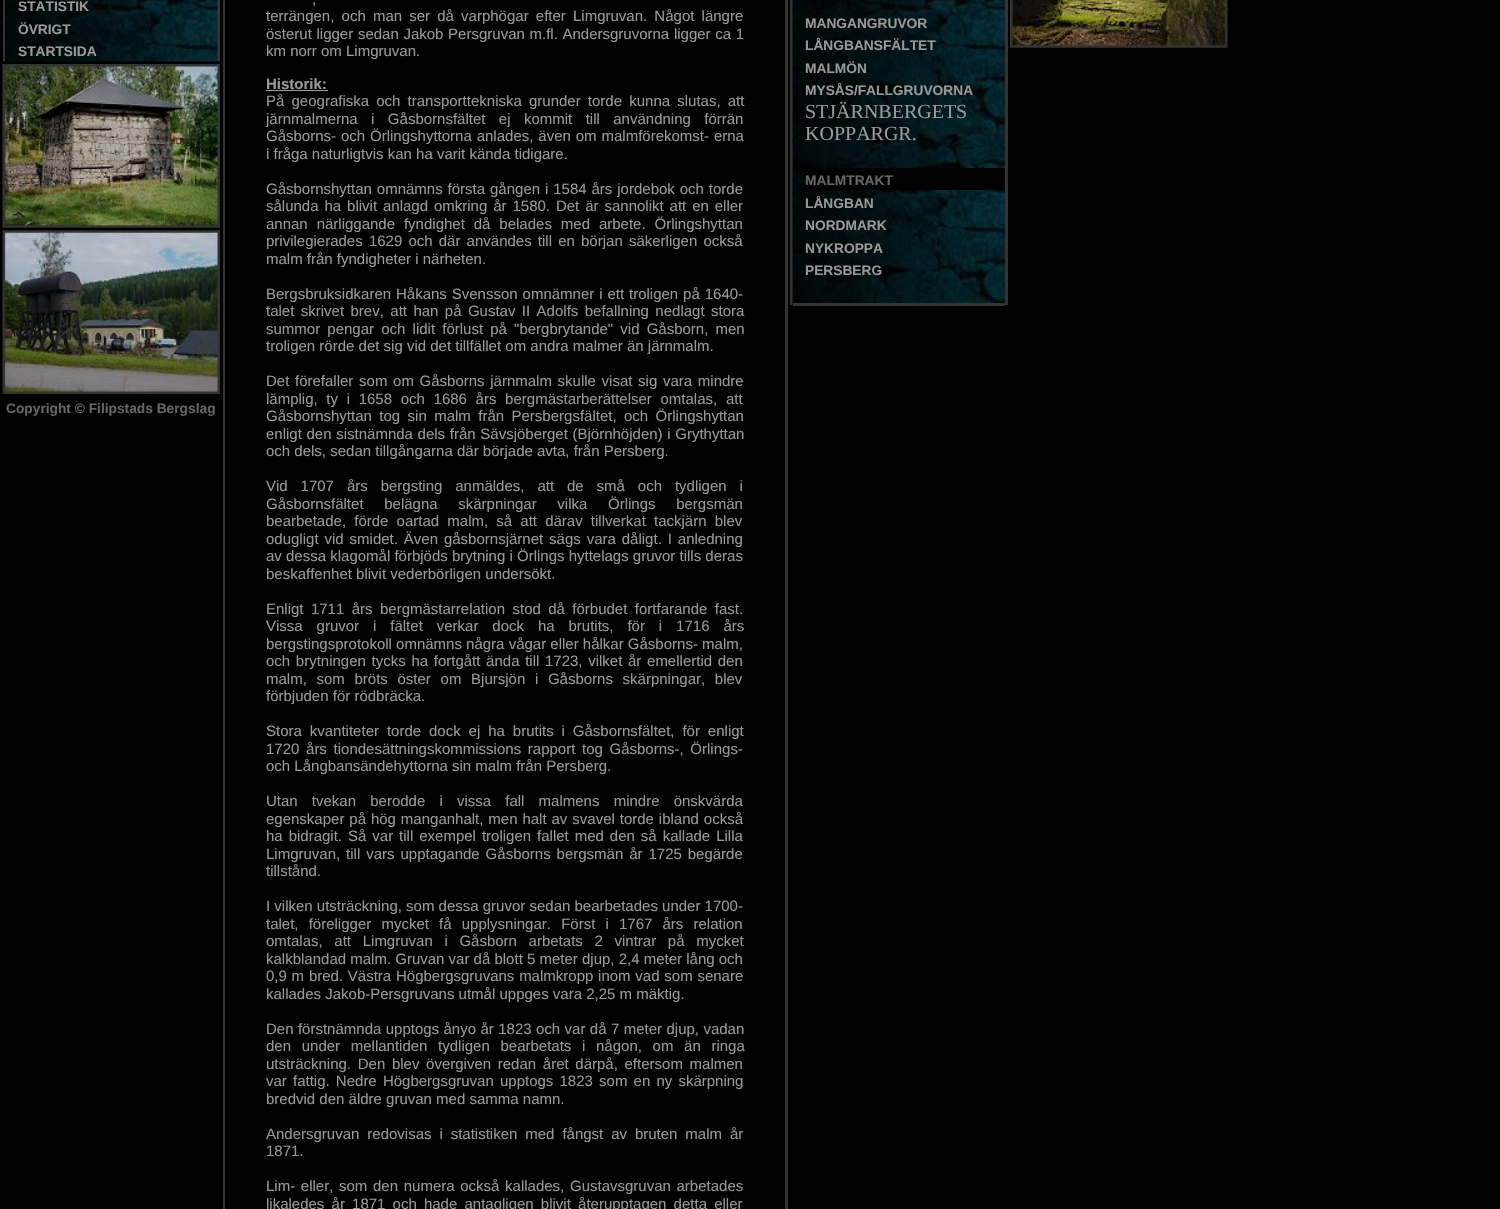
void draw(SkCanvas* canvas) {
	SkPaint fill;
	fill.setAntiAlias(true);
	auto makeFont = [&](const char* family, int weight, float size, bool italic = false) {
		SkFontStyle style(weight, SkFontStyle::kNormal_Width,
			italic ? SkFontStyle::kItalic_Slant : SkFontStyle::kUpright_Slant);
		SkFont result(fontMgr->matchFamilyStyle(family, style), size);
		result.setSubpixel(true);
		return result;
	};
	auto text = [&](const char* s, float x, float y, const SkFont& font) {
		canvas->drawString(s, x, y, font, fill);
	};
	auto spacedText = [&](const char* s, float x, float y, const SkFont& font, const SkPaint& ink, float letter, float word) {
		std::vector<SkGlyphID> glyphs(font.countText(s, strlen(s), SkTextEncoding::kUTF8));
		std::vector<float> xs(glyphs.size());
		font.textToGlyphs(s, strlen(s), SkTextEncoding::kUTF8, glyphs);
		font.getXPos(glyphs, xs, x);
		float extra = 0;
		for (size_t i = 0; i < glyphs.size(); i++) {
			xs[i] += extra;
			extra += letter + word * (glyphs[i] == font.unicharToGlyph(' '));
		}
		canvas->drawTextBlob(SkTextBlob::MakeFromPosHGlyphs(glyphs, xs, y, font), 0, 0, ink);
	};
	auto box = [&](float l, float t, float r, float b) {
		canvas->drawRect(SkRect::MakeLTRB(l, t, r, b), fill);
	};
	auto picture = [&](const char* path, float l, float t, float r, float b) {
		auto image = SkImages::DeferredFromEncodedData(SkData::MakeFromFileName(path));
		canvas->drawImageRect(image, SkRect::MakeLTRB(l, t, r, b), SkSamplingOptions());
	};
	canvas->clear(0xFF000000);
	fill.setColor(0xFF333333);
	box(3, 0, 220, 61);
	picture("image0.png", 5, 0, 218, 62);
	picture("image1.png", 2, 64, 220, 228);
	picture("image2.png", 2, 230, 220, 394);
	box(223, 0, 788, 1209);
	fill.setColor(0xFF000000);
	box(225, 0, 785, 1209);
	fill.setColor(0xFF999999);
	box(266, 90, 328, 91);
	fill.setColor(0xFF333333);
	box(790, 0, 1008, 305);
	picture("image3.png", 792, 0, 1005, 306);
	fill.setColor(0xFF000000);
	box(805, 168, 1005, 190);
	fill.setColor(0xFF333333);
	box(793, 303, 1005, 306);
	picture("image4.png", 1010, 0, 1228, 48);
	auto font1 = makeFont("Liberation Sans", 700, 13.75f);
	fill.setColor(0xFF999999);
	text("STATISTIK", 18, 11, font1);
	text("ÖVRIGT", 18, 34, font1);
	text("STARTSIDA", 18, 56, font1);
	fill.setColor(0xFF666666);
	text("Copyright © Filipstads Bergslag", 6, 413, font1);
	auto font2 = makeFont("Liberation Sans", 400, 15);
	fill.setColor(0xFF999999);
	spacedText(",", 312, 4, font2, fill, 0, 5);
	spacedText("terrängen, och man ser då varphögar efter Limgruvan. Något längre", 266, 21, font2, fill, 0, 3);
	spacedText("österut ligger sedan Jakob Persgruvan m.fl. Andersgruvorna ligger ca 1", 266, 39, font2, fill, 0, 0.5f);
	text("km norr om Limgruvan.", 266, 56, font2);
	auto font3 = makeFont("Liberation Sans", 700, 15);
	text("Historik:", 266, 89, font3);
	spacedText("På geografiska och transporttekniska grunder torde kunna slutas, att", 266, 106, font2, fill, 0, 3);
	spacedText("järnmalmerna i Gåsbornsfältet ej kommit till användning förrän", 266, 124, font2, fill, 0, 9.25f);
	spacedText("Gåsborns- och Örlingshyttorna anlades, även om malmförekomst- erna", 266, 141, font2, fill, 0, 0.75f);
	text("i fråga naturligtvis kan ha varit kända tidigare.", 266, 159, font2);
	spacedText("Gåsbornshyttan omnämns första gången i 1584 års jordebok och torde", 266, 194, font2, fill, 0, 0.75f);
	spacedText("sålunda ha blivit anlagd omkring år 1580. Det är sannolikt att en eller", 266, 211, font2, fill, 0, 1.75f);
	spacedText("annan närliggande fyndighet då belades med arbete. Örlingshyttan", 266, 229, font2, fill, 0, 4.75f);
	spacedText("privilegierades 1629 och där användes till en början säkerligen också", 266, 246, font2, fill, 0, 2);
	text("malm från fyndigheter i närheten.", 266, 264, font2);
	spacedText("Bergsbruksidkaren Håkans Svensson omnämner i ett troligen på 1640-", 266, 299, font2, fill, 0, 0.75f);
	spacedText("talet skrivet brev, att han på Gustav II Adolfs befallning nedlagt stora", 266, 316, font2, fill, 0, 2.25f);
	spacedText("summor pengar och lidit förlust på \"bergbrytande\" vid Gåsborn, men", 266, 334, font2, fill, 0, 3);
	text("troligen rörde det sig vid det tillfället om andra malmer än järnmalm.", 266, 351, font2);
	spacedText("Det förefaller som om Gåsborns järnmalm skulle visat sig vara mindre", 266, 386, font2, fill, 0, 1.5f);
	spacedText("lämplig, ty i 1658 och 1686 års bergmästarberättelser omtalas, att", 266, 404, font2, fill, 0, 4.5f);
	spacedText("Gåsbornshyttan tog sin malm från Persbergsfältet, och Örlingshyttan", 266, 421, font2, fill, 0, 3.25f);
	spacedText("enligt den sistnämnda dels från Sävsjöberget (Björnhöjden) i Grythyttan", 266, 439, font2, fill, 0, 0.5f);
	text("och dels, sedan tillgångarna där började avta, från Persberg.", 266, 456, font2);
	spacedText("Vid 1707 års bergsting anmäldes, att de små och tydligen i", 266, 491, font2, fill, 0, 8.75f);
	spacedText("Gåsbornsfältet belägna skärpningar vilka Örlings bergsmän", 266, 509, font2, fill, 0, 16.5f);
	spacedText("bearbetade, förde oartad malm, så att därav tillverkat tackjärn blev", 266, 526, font2, fill, 0, 4);
	spacedText("odugligt vid smidet. Även gåsbornsjärnet sägs vara dåligt. I anledning", 266, 544, font2, fill, 0, 1.75f);
	text("av dessa klagomål förbjöds brytning i Örlings hyttelags gruvor tills deras", 266, 561, font2);
	text("beskaffenhet blivit vederbörligen undersökt.", 266, 579, font2);
	spacedText("Enligt 1711 års bergmästarrelation stod då förbudet fortfarande fast.", 266, 614, font2, fill, 0, 3.25f);
	spacedText("Vissa gruvor i fältet verkar dock ha brutits, för i 1716 års", 266, 631, font2, fill, 0, 9.75f);
	text("bergstingsprotokoll omnämns några vågar eller hålkar Gåsborns- malm,", 266, 649, font2);
	spacedText("och brytningen tycks ha fortgått ända till 1723, vilket år emellertid den", 266, 666, font2, fill, 0, 1.5f);
	spacedText("malm, som bröts öster om Bjursjön i Gåsborns skärpningar, blev", 266, 684, font2, fill, 0, 5.5f);
	text("förbjuden för rödbräcka.", 266, 701, font2);
	spacedText("Stora kvantiteter torde dock ej ha brutits i Gåsbornsfältet, för enligt", 266, 736, font2, fill, 0, 3.75f);
	spacedText("1720 års tiondesättningskommissions rapport tog Gåsborns-, Örlings-", 266, 754, font2, fill, 0, 2.5f);
	text("och Långbansändehyttorna sin malm från Persberg.", 266, 771, font2);
	spacedText("Utan tvekan berodde i vissa fall malmens mindre önskvärda", 266, 806, font2, fill, 0, 10);
	spacedText("egenskaper på hög manganhalt, men halt av svavel torde ibland också", 266, 824, font2, fill, 0, 0.75f);
	spacedText("ha bidragit. Så var till exempel troligen fallet med den så kallade Lilla", 266, 841, font2, fill, 0, 1.8f);
	spacedText("Limgruvan, till vars upptagande Gåsborns bergsmän år 1725 begärde", 266, 859, font2, fill, 0, 1.75f);
	text("tillstånd.", 266, 876, font2);
	text("I vilken utsträckning, som dessa gruvor sedan bearbetades under 1700-", 266, 911, font2);
	spacedText("talet, föreligger mycket få upplysningar. Först i 1767 års relation", 266, 929, font2, fill, 0, 6);
	spacedText("omtalas, att Limgruvan i Gåsborn arbetats 2 vintrar på mycket", 266, 946, font2, fill, 0, 7.5f);
	text("kalkblandad malm. Gruvan var då blott 5 meter djup, 2,4 meter lång och", 266, 964, font2);
	spacedText("0,9 m bred. Västra Högbergsgruvans malmkropp inom vad som senare", 266, 981, font2, fill, 0, 0.6f);
	text("kallades Jakob-Persgruvans utmål uppges vara 2,25 m mäktig.", 266, 999, font2);
	spacedText("Den förstnämnda upptogs ånyo år 1823 och var då 7 meter djup, vadan", 266, 1034, font2, fill, 0, 0.25f);
	spacedText("den under mellantiden tydligen bearbetats i någon, om än ringa", 266, 1051, font2, fill, 0, 6.5f);
	spacedText("utsträckning. Den blev övergiven redan året därpå, eftersom malmen", 266, 1069, font2, fill, 0, 2.5f);
	spacedText("var fattig. Nedre Högbergsgruvan upptogs 1823 som en ny skärpning", 266, 1086, font2, fill, 0, 2);
	text("bredvid den äldre gruvan med samma namn.", 266, 1104, font2);
	spacedText("Andersgruvan redovisas i statistiken med fångst av bruten malm år", 266, 1139, font2, fill, 0, 3.75f);
	text("1871.", 266, 1156, font2);
	spacedText("Lim- eller, som den numera också kallades, Gustavsgruvan arbetades", 266, 1191, font2, fill, 0, 1.5f);
	spacedText("likaledes år 1871 och hade antagligen blivit återupptagen detta eller", 266, 1209, font2, fill, 0, 3);
	text("MANGANGRUVOR", 805, 28, font1);
	text("LÅNGBANSFÄLTET", 805, 50, font1);
	text("MALMÖN", 805, 73, font1);
	text("MYSÅS/FALLGRUVORNA", 805, 95, font1);
	auto font4 = makeFont("Liberation Serif", 400, 20);
	text("STJÄRNBERGETS", 805, 118, font4);
	text("KOPPARGR.", 805, 140, font4);
	fill.setColor(0xFF666666);
	text("MALMTRAKT", 805, 185, font1);
	fill.setColor(0xFF999999);
	text("LÅNGBAN", 805, 208, font1);
	text("NORDMARK", 805, 230, font1);
	text("NYKROPPA", 805, 253, font1);
	text("PERSBERG", 805, 275, font1);
}
